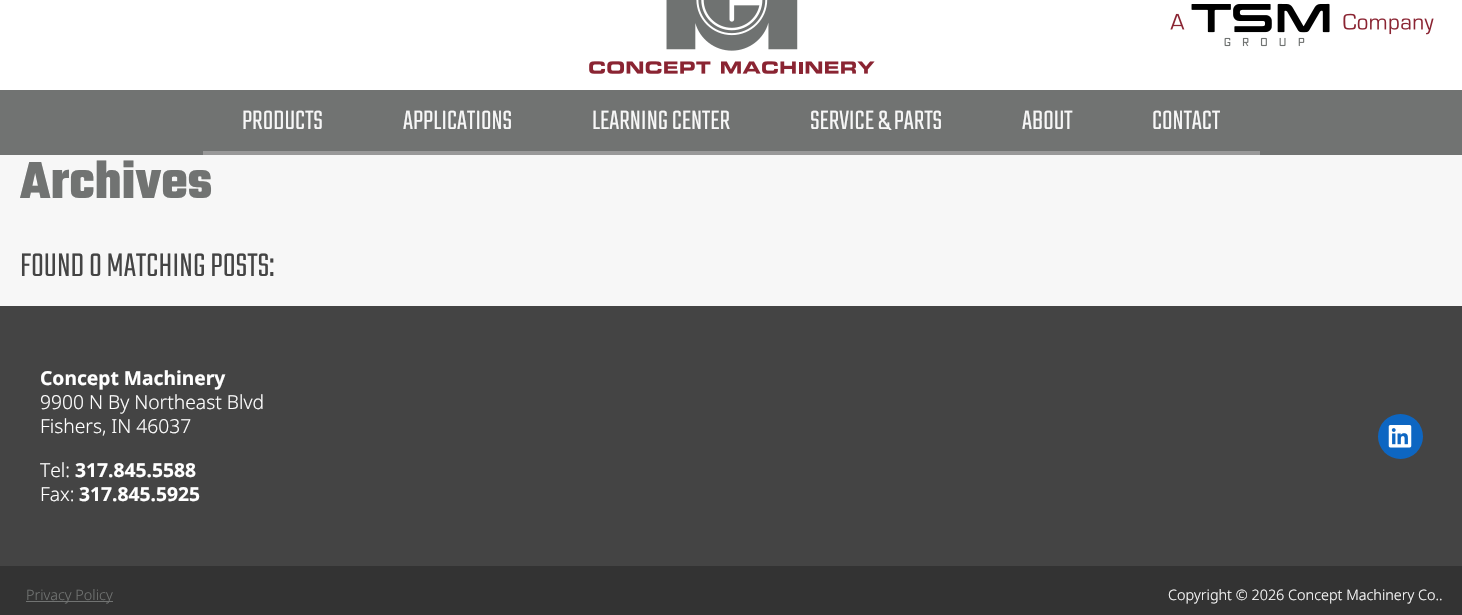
void draw(SkCanvas* canvas) {
	SkPaint fill;
	fill.setAntiAlias(true);
	auto makeFont = [&](const char* family, int weight, float size, bool italic = false) {
		SkFontStyle style(weight, SkFontStyle::kNormal_Width,
			italic ? SkFontStyle::kItalic_Slant : SkFontStyle::kUpright_Slant);
		SkFont result(fontMgr->matchFamilyStyle(family, style), size);
		result.setSubpixel(true);
		return result;
	};
	auto text = [&](const char* s, float x, float y, const SkFont& font) {
		canvas->drawString(s, x, y, font, fill);
	};
	auto box = [&](float l, float t, float r, float b) {
		canvas->drawRect(SkRect::MakeLTRB(l, t, r, b), fill);
	};
	auto picture = [&](const char* path, float l, float t, float r, float b) {
		auto image = SkImages::DeferredFromEncodedData(SkData::MakeFromFileName(path));
		canvas->drawImageRect(image, SkRect::MakeLTRB(l, t, r, b), SkSamplingOptions());
	};
	canvas->clear(0xFFF7F7F7);
	fill.setColor(0xFFFFFFFF);
	box(0, 0, 1462, 90);
	picture("image0.png", 589, 0, 875, 74);
	picture("image1.png", 1170, 3, 1434, 47);
	fill.setColor(0xFF717372);
	box(0, 90, 1462, 155);
	fill.setColor(0xFF999999);
	box(203, 151, 1260, 155);
	fill.setColor(0xFF444444);
	box(0, 306, 1462, 566);
	fill.setColor(0xFF0D66C2);
	canvas->drawCircle(1400.5f, 436.5f, 22.5f, fill);
	picture("image2.png", 1388, 425, 1412, 448);
	fill.setColor(0xFF333333);
	box(0, 566, 1462, 615);
	fill.setColor(0xFF717372);
	box(26, 601, 113, 602);
	auto font1 = makeFont("Teko", 300, 29.25f);
	fill.setColor(0xFFF7F7F7);
	text("PRODUCTS", 242, 129, font1);
	text("APPLICATIONS", 403, 129, font1);
	text("LEARNING CENTER", 592, 129, font1);
	text("SERVICE & PARTS", 810, 129, font1);
	text("ABOUT", 1022, 129, font1);
	text("CONTACT", 1152, 129, font1);
	auto font2 = makeFont("Teko", 700, 56);
	fill.setColor(0xFF717372);
	text("Archives", 20, 198, font2);
	auto font3 = makeFont("Teko", 300, 36);
	fill.setColor(0xFF444444);
	text("FOUND 0 MATCHING POSTS:", 20, 276, font3);
	auto font4 = makeFont("Noto Sans", 700, 19.25f);
	fill.setColor(0xFFFFFFFF);
	text("Concept Machinery", 40, 385, font4);
	auto font5 = makeFont("Noto Sans", 300, 19.25f);
	text("9900 N By Northeast Blvd", 40, 409, font5);
	text("Fishers, IN 46037", 40, 433, font5);
	text("Tel:", 40, 477, font5);
	text("317.845.5588", 75, 477, font4);
	text("Fax:", 40, 501, font5);
	text("317.845.5925", 79, 501, font4);
	auto font6 = makeFont("Noto Sans", 300, 14.4f);
	fill.setColor(0xFF717372);
	text("Privacy Policy", 26, 600, font6);
	fill.setColor(0xFFFFFFFF);
	text("Copyright © 2026 Concept Machinery Co..", 1168, 600, font6);
}
